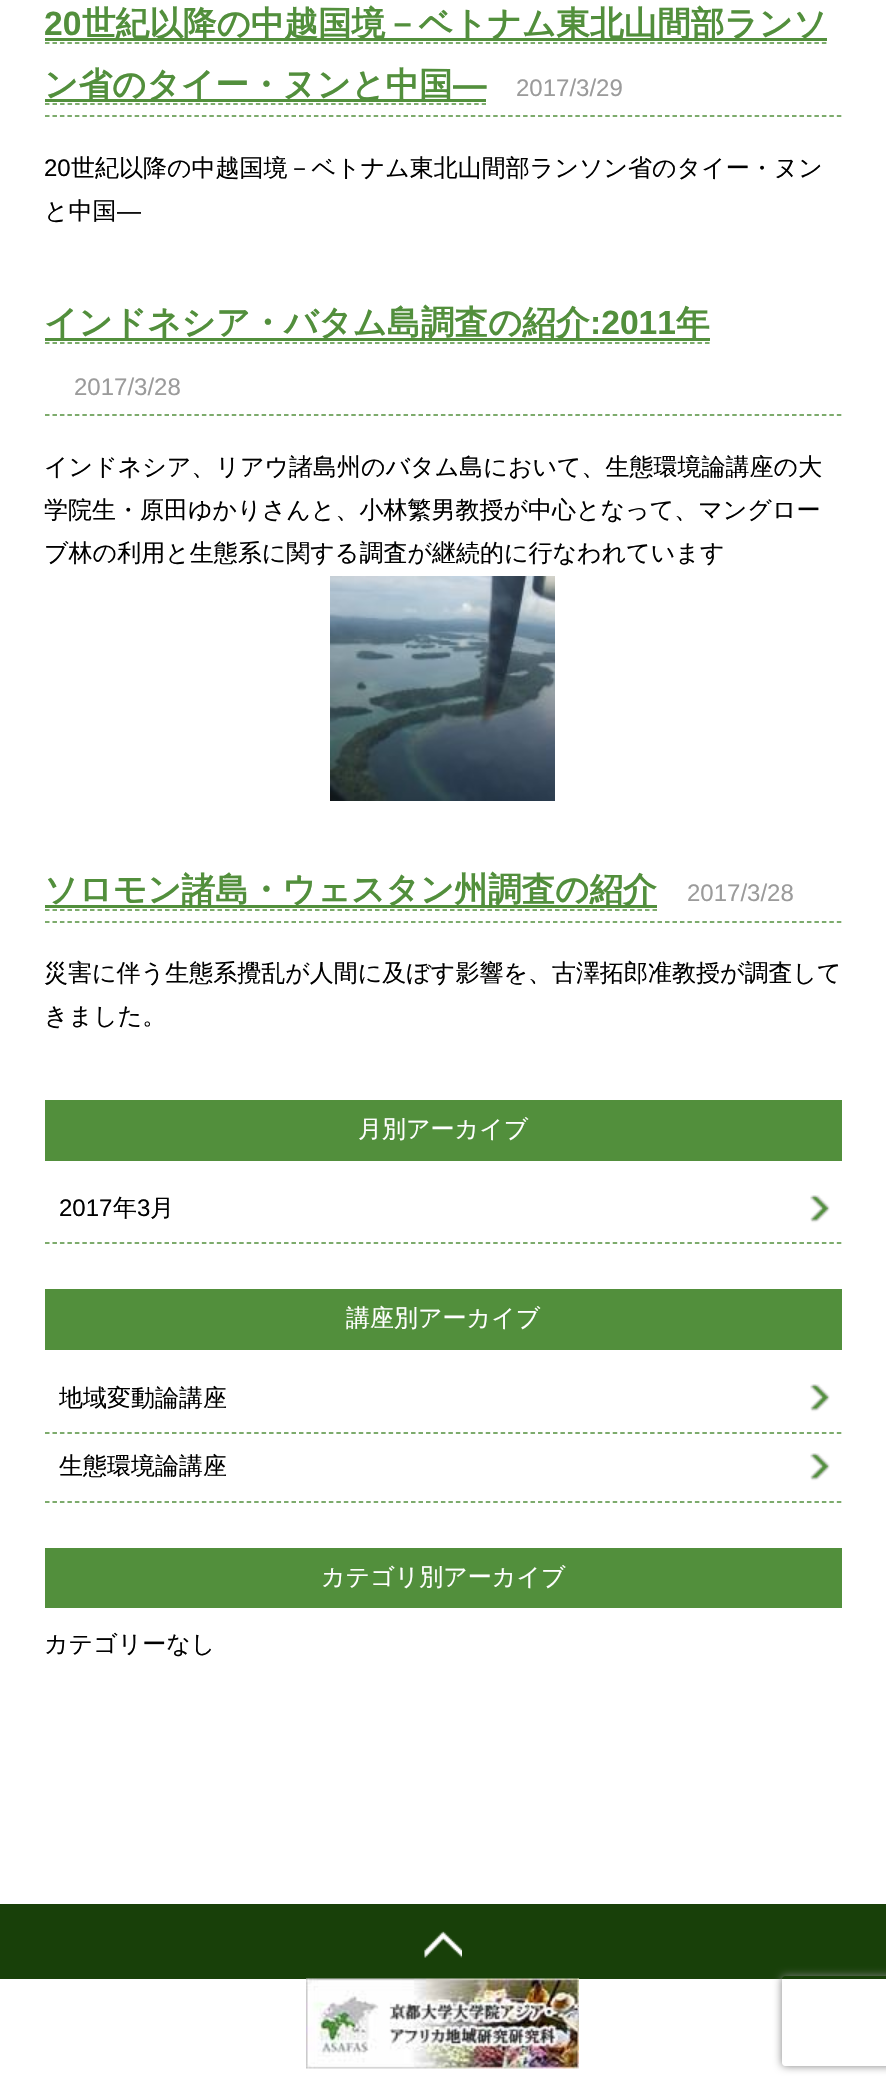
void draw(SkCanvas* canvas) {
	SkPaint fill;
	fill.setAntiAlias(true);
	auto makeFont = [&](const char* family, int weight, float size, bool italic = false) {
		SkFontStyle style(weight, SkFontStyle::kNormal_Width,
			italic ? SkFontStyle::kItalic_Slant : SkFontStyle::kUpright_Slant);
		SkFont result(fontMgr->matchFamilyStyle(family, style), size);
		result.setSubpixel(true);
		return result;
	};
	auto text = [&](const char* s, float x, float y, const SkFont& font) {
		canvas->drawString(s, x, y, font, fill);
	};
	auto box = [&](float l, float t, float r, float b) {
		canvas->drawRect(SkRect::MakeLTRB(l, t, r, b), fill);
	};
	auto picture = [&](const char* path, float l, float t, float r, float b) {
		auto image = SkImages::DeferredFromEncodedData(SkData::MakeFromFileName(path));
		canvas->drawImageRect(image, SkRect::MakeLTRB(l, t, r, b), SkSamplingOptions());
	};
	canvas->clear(0xFFFFFFFF);
	fill.setStyle(SkPaint::kStroke_Style);
	fill.setStrokeWidth(1.5f);
	fill.setColor(0xFF528F3C);
	fill.setPathEffect(SkDashPathEffect::Make({{4.5f, 2.97f}}, 0));
	canvas->drawPath(SkPathBuilder().moveTo(45, 116).lineTo(841.5f, 116).detach(), fill);
	fill.setPathEffect(nullptr);
	fill.setPathEffect(SkDashPathEffect::Make({{4.5f, 2.97f}}, 0));
	canvas->drawPath(SkPathBuilder().moveTo(45, 43).lineTo(826.5f, 43).detach(), fill);
	fill.setPathEffect(nullptr);
	fill.setStyle(SkPaint::kFill_Style);
	box(45, 38, 827, 41);
	fill.setStyle(SkPaint::kStroke_Style);
	fill.setPathEffect(SkDashPathEffect::Make({{4.5f, 3.03f}}, 0));
	canvas->drawPath(SkPathBuilder().moveTo(45, 104).lineTo(486, 104).detach(), fill);
	fill.setPathEffect(nullptr);
	fill.setStyle(SkPaint::kFill_Style);
	box(45, 99, 486, 102);
	fill.setStyle(SkPaint::kStroke_Style);
	fill.setPathEffect(SkDashPathEffect::Make({{4.5f, 2.97f}}, 0));
	canvas->drawPath(SkPathBuilder().moveTo(45, 415).lineTo(841.5f, 415).detach(), fill);
	fill.setPathEffect(nullptr);
	fill.setPathEffect(SkDashPathEffect::Make({{4.5f, 3}}, 0));
	canvas->drawPath(SkPathBuilder().moveTo(45, 343).lineTo(709.5f, 343).detach(), fill);
	fill.setPathEffect(nullptr);
	fill.setStyle(SkPaint::kFill_Style);
	box(45, 338, 710, 341);
	picture("image0.png", 330, 576, 555, 801);
	fill.setStyle(SkPaint::kStroke_Style);
	fill.setPathEffect(SkDashPathEffect::Make({{4.5f, 2.97f}}, 0));
	canvas->drawPath(SkPathBuilder().moveTo(45, 922).lineTo(841.5f, 922).detach(), fill);
	fill.setPathEffect(nullptr);
	fill.setPathEffect(SkDashPathEffect::Make({{4.5f, 3}}, 0));
	canvas->drawPath(SkPathBuilder().moveTo(45, 910).lineTo(657, 910).detach(), fill);
	fill.setPathEffect(nullptr);
	fill.setStyle(SkPaint::kFill_Style);
	box(45, 905, 657, 908);
	box(45, 1100, 842, 1161);
	picture("image1.png", 810, 1195, 830, 1223);
	fill.setStyle(SkPaint::kStroke_Style);
	fill.setPathEffect(SkDashPathEffect::Make({{4.5f, 2.97f}}, 0));
	canvas->drawPath(SkPathBuilder().moveTo(45, 1243).lineTo(841.5f, 1243).detach(), fill);
	fill.setPathEffect(nullptr);
	fill.setStyle(SkPaint::kFill_Style);
	box(45, 1289, 842, 1350);
	picture("image1.png", 810, 1384, 830, 1412);
	fill.setStyle(SkPaint::kStroke_Style);
	fill.setPathEffect(SkDashPathEffect::Make({{4.5f, 2.97f}}, 0));
	canvas->drawPath(SkPathBuilder().moveTo(45, 1433).lineTo(841.5f, 1433).detach(), fill);
	fill.setPathEffect(nullptr);
	picture("image1.png", 810, 1453, 830, 1481);
	fill.setPathEffect(SkDashPathEffect::Make({{4.5f, 2.97f}}, 0));
	canvas->drawPath(SkPathBuilder().moveTo(45, 1502).lineTo(841.5f, 1502).detach(), fill);
	fill.setPathEffect(nullptr);
	fill.setStyle(SkPaint::kFill_Style);
	box(45, 1548, 842, 1608);
	fill.setColor(0xFF184009);
	box(0, 1904, 886, 1979);
	picture("image2.png", 424, 1931, 462, 1958);
	picture("image3.png", 306, 1978, 579, 2069);
	canvas->save();
	canvas->clipPath(SkPathBuilder(SkPathFillType::kEvenOdd).moveTo(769, 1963).lineTo(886, 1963).lineTo(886, 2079).lineTo(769, 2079).close().moveTo(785, 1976).lineTo(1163, 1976).cubicTo(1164.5f, 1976, 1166, 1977.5f, 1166, 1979).lineTo(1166, 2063).cubicTo(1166, 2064.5f, 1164.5f, 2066, 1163, 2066).lineTo(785, 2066).cubicTo(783.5f, 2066, 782, 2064.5f, 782, 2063).lineTo(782, 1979).cubicTo(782, 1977.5f, 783.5f, 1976, 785, 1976).close().detach(), true);
	fill.setColor(0xFF808080);
	fill.setMaskFilter(SkMaskFilter::MakeBlur(kNormal_SkBlurStyle, 4));
	canvas->drawRoundRect(SkRect::MakeLTRB(782, 1976, 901, 2066), 3, 3, fill);
	fill.setMaskFilter(nullptr);
	canvas->restore();
	auto font1 = makeFont("Liberation Sans", 700, 33.6f);
	fill.setColor(0xFF528F3C);
	text("20", 44, 35, font1);
	auto font2 = makeFont("WenQuanYi Zen Hei", 700, 33.6f);
	text("世紀以降の中越国境－ベトナム東北山間部ランソ", 82, 35, font2);
	text("ン省のタイー・ヌンと中国", 44, 96, font2);
	text("―", 453, 96, font1);
	auto font3 = makeFont("Liberation Sans", 400, 24);
	fill.setColor(0xFF9B9B9B);
	text("2017/3/29", 516, 96, font3);
	fill.setColor(0xFF000000);
	text("20", 44, 176, font3);
	auto font4 = makeFont("WenQuanYi Zen Hei", 500, 24);
	text("世紀以降の中越国境－ベトナム東北山間部ランソン省のタイー・ヌン", 71, 176, font4);
	text("と中国", 44, 219, font4);
	text("―", 117, 219, font3);
	fill.setColor(0xFF528F3C);
	text("インドネシア・バタム島調査の紹介", 44, 334, font2);
	text(":2011", 590, 334, font1);
	text("年", 676, 334, font2);
	fill.setColor(0xFF9B9B9B);
	text("2017/3/28", 74, 395, font3);
	fill.setColor(0xFF000000);
	text("インドネシア、リアウ諸島州のバタム島において、生態環境論講座の大", 44, 475, font4);
	text("学院生・原田ゆかりさんと、小林繁男教授が中心となって、マングロー", 44, 518, font4);
	text("ブ林の利用と生態系に関する調査が継続的に行なわれています", 44, 561, font4);
	fill.setColor(0xFF528F3C);
	text("ソロモン諸島・ウェスタン州調査の紹介", 44, 901, font2);
	fill.setColor(0xFF9B9B9B);
	text("2017/3/28", 687, 901, font3);
	fill.setColor(0xFF000000);
	text("災害に伴う生態系攪乱が人間に及ぼす影響を、古澤拓郎准教授が調査して", 44, 981, font4);
	text("きました。", 44, 1024, font4);
	fill.setColor(0xFFFFFFFF);
	text("月別アーカイブ", 358, 1137, font4);
	fill.setColor(0xFF000000);
	text("2017", 59, 1216, font3);
	text("年", 113, 1216, font4);
	text("3", 137, 1216, font3);
	text("月", 150, 1216, font4);
	fill.setColor(0xFFFFFFFF);
	text("講座別アーカイブ", 346, 1326, font4);
	fill.setColor(0xFF000000);
	text("地域変動論講座", 59, 1406, font4);
	text("生態環境論講座", 59, 1474, font4);
	fill.setColor(0xFFFFFFFF);
	text("カテゴリ別アーカイブ", 321, 1585, font4);
	fill.setColor(0xFF000000);
	text("カテゴリーなし", 44, 1652, font4);
}
